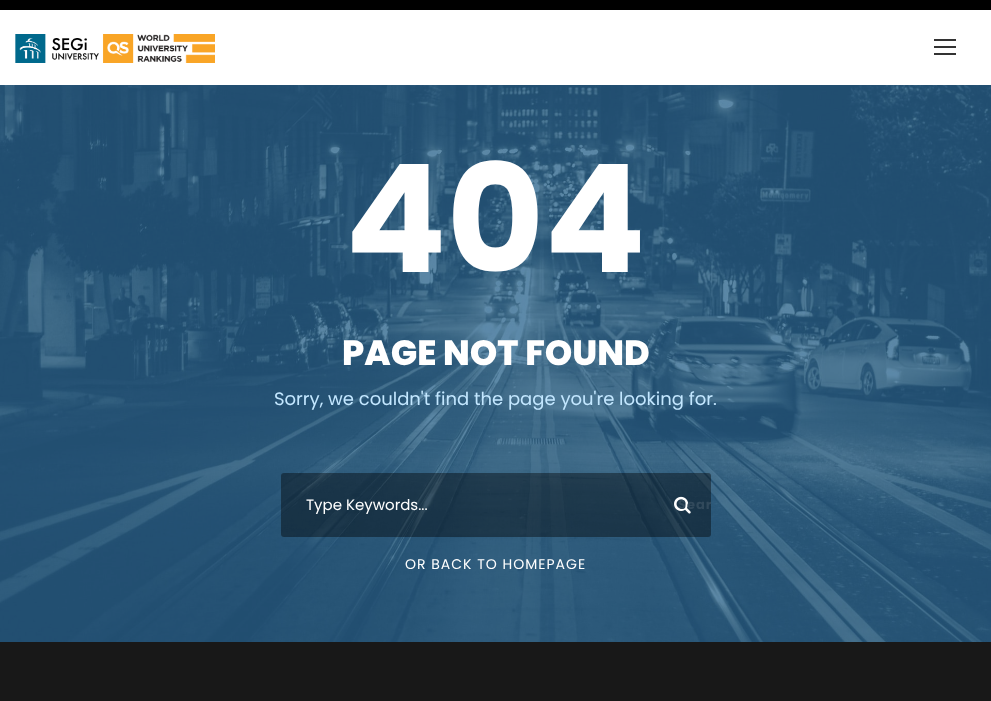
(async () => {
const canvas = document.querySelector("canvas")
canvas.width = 991
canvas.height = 701
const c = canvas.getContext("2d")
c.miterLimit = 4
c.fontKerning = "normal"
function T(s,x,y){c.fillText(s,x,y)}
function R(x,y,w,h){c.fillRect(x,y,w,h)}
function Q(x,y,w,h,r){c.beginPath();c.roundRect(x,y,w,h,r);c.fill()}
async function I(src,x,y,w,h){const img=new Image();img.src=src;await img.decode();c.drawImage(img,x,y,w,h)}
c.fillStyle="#fff"
R(0,0,991,701)
c.fillStyle="#000"
R(0,0,991,10)
await I("1.png",15,34,200,29)
c.fillStyle="#333"
R(934,39,22,2)
R(934,46,22,2)
R(934,53,22,2)
c.fillStyle="#23618e"
R(0,85,991,557)
await I("2.png",0,85,991,557)
c.font="bold 150px Poppins"
c.fillStyle="#fff"
T("404",345,272)
c.font="800 35px Poppins"
T("PAGE NOT FOUND",342,365)
c.font="18px Poppins"
c.fillStyle="#c3e7ff"
T("Sorry, we couldn't find the page you're looking for.",274,405)
c.fillStyle="#00000066"
Q(281,473,430,64,3)
c.font="15px Poppins"
c.fillStyle="#fff"
T("Type Keywords...",306,510)
await I("3.png",674,496,17,18)
c.letterSpacing="1px"
c.font="bold 13px Poppins"
c.fillStyle="#31495b"
T("Sear",678,509)
c.font="14px Poppins"
c.fillStyle="#fff"
T("OR BACK TO HOMEPAGE",405,569)
c.fillStyle="#181818"
R(0,642,991,59)
})()
